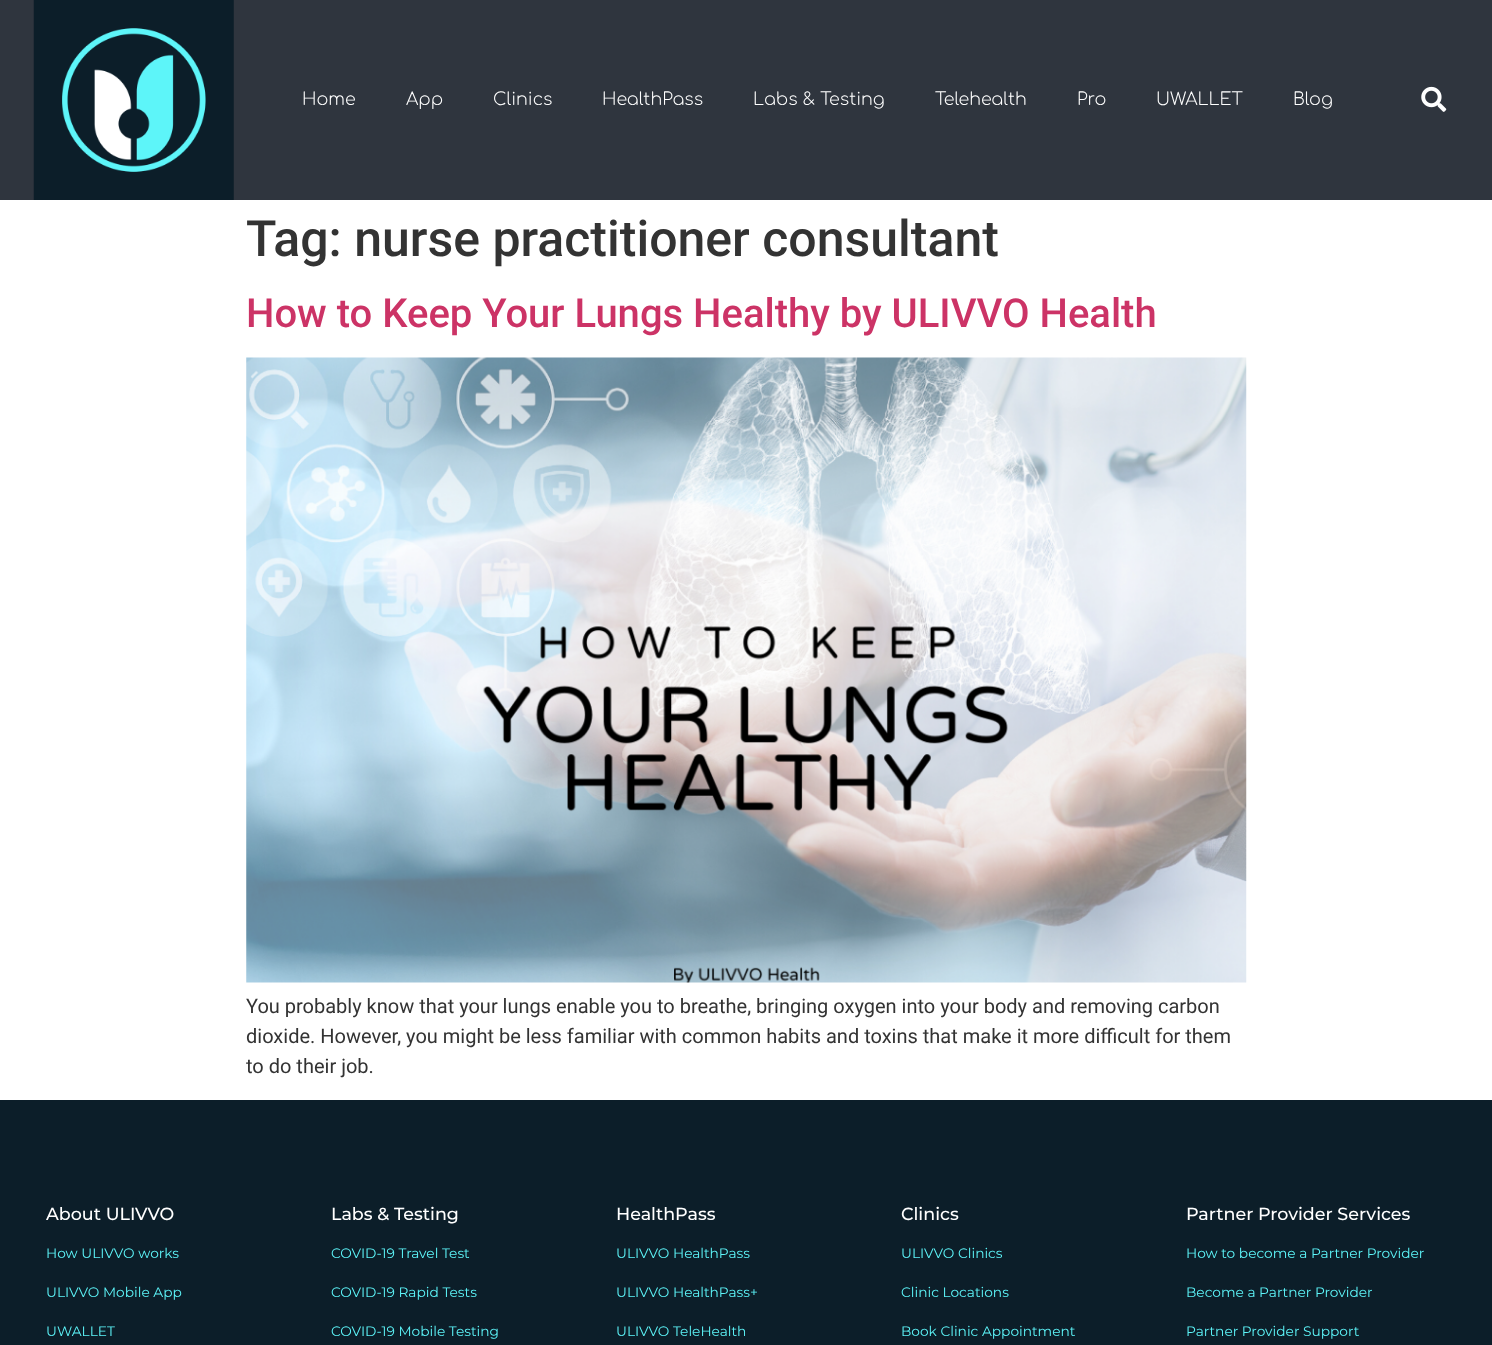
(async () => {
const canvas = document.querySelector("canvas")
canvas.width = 1492
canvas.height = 1345
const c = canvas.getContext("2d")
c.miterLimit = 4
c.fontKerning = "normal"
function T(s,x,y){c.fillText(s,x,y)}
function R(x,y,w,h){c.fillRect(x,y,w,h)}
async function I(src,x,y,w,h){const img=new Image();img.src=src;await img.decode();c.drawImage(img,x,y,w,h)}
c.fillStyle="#fff"
R(0,0,1492,1345)
c.fillStyle="#2f353e"
R(0,0,1492,200)
await I("1.png",33,0,201,200)
c.font="300 17.5px Comfortaa"
c.fillStyle="#fff"
T("Home",302,105)
T("App",406,105)
T("Clinics",493,105)
T("HealthPass",602,105)
T("Labs & Testing",753,105)
T("Telehealth",935,105)
T("Pro",1077,105)
T("UWALLET",1156,105)
T("Blog",1293,105)
await I("2.png",1421,86,26,26)
c.font="500 50px Roboto"
c.fillStyle="#333"
T("Tag: nurse practitioner consultant",246,256)
c.font="500 40px Roboto"
c.fillStyle="#c36"
T("How to Keep Your Lungs Healthy by ULIVVO Health",246,327)
await I("3.png",246,357,1001,626)
c.font="20px Roboto"
c.fillStyle="#333"
T("You probably know that your lungs enable you to breathe, bringing oxygen into your body and removing carbon",246,1013)
T("dioxide. However, you might be less familiar with common habits and toxins that make it more difficult for them",246,1043)
T("to do their job.",246,1073)
c.fillStyle="#0c1e29"
R(0,1100,1492,245)
c.font="500 17.5px Montserrat"
c.fillStyle="#fff"
T("About ULIVVO",46,1220)
c.font="13.75px Montserrat"
c.fillStyle="#5df5f9"
T("How ULIVVO works",46,1258)
T("ULIVVO Mobile App",46,1297)
T("UWALLET",46,1336)
c.font="500 17.5px Montserrat"
c.fillStyle="#fff"
T("Labs & Testing",331,1220)
c.font="13.75px Montserrat"
c.fillStyle="#5df5f9"
T("COVID-19 Travel Test",331,1258)
T("COVID-19 Rapid Tests",331,1297)
T("COVID-19 Mobile Testing",331,1336)
c.font="500 17.5px Montserrat"
c.fillStyle="#fff"
T("HealthPass",616,1220)
c.font="13.75px Montserrat"
c.fillStyle="#5df5f9"
T("ULIVVO HealthPass",616,1258)
T("ULIVVO HealthPass+",616,1297)
T("ULIVVO TeleHealth",616,1336)
c.font="500 17.5px Montserrat"
c.fillStyle="#fff"
T("Clinics",901,1220)
c.font="13.75px Montserrat"
c.fillStyle="#5df5f9"
T("ULIVVO Clinics",901,1258)
T("Clinic Locations",901,1297)
T("Book Clinic Appointment",901,1336)
c.font="500 17.5px Montserrat"
c.fillStyle="#fff"
T("Partner Provider Services",1186,1220)
c.font="13.75px Montserrat"
c.fillStyle="#5df5f9"
T("How to become a Partner Provider",1186,1258)
T("Become a Partner Provider",1186,1297)
T("Partner Provider Support",1186,1336)
})()
